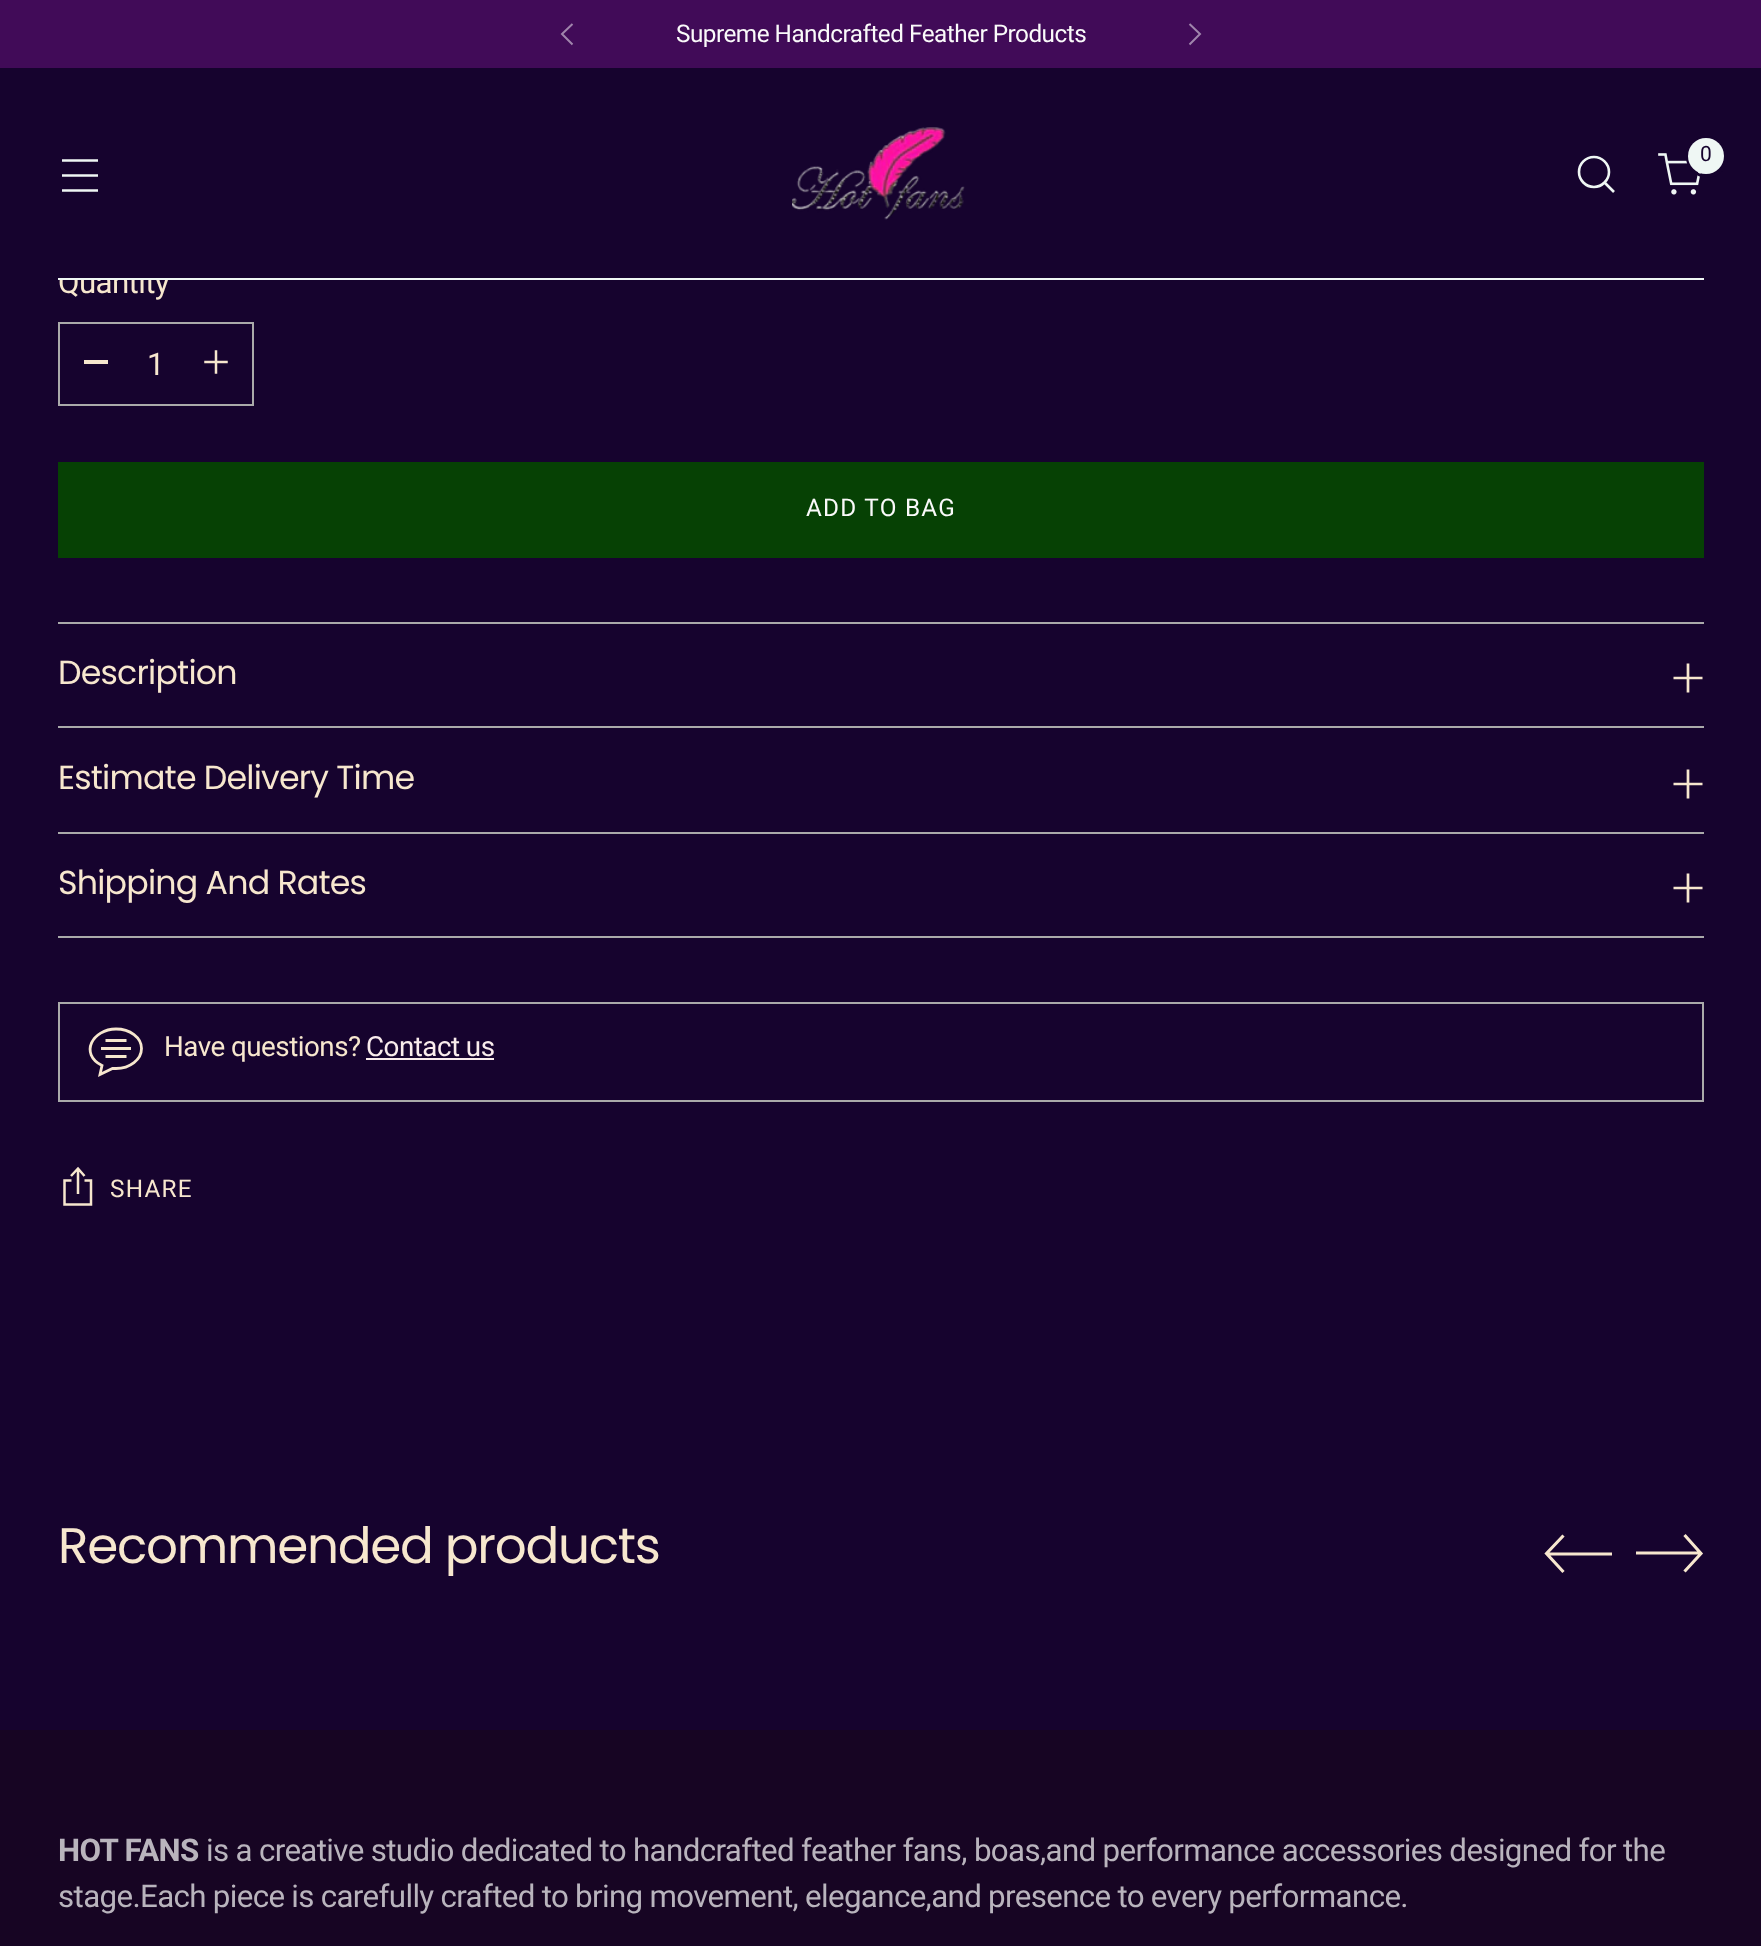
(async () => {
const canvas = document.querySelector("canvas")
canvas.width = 1761
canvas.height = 1946
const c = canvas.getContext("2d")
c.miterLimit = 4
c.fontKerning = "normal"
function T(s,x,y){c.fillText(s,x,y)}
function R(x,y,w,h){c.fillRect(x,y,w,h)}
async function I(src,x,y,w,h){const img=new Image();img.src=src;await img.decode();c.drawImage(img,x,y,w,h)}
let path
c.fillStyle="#16032e"
R(0,0,1761,1946)
c.fillStyle="#410b58"
R(0,0,1761,68)
path = new Path2D("M572.5 24l-10.5 10l10.5 10.5")
c.strokeStyle="#a085ac"
c.lineWidth=2
c.stroke(path)
path = new Path2D("M1189.5 44.5l10.5-10.5l-10.5-10")
c.stroke(path)
c.letterSpacing="-0.5px"
c.font="24.3px Roboto"
c.fillStyle="#fafafa"
T("Supreme Handcrafted Feather Products",676,42)
c.letterSpacing="-0.63px"
c.font="31.3px Roboto"
c.fillStyle="#f7e7ce"
T("Quantity",58,293)
c.fillStyle="#16032e"
R(59,270,111,10)
c.fillStyle="#eff7f4"
R(58,278,1646,2)
await I("1.png",792,127,173,93)
path = new Path2D("M1594 187c8 0 15-7 15-15c0-8.5-7-15-15-15c-8.5 0-15 6.5-15 15c0 8 6.5 15 15 15z")
c.strokeStyle="#eff7f4"
c.lineWidth=2.6
c.lineCap="round"
c.stroke(path)
path = new Path2D("M1604.5 182.5l9.5 9.5")
c.lineCap="butt"
c.stroke(path)
await I("2.png",1658,153,43,42)
c.beginPath()
c.arc(1707,157,19.5,0,7)
c.strokeStyle="#16032e"
c.lineWidth=3
c.stroke()
c.beginPath()
c.arc(1706,156,18,0,7)
c.fill()
c.font="21px Roboto"
c.fillStyle="#16032e"
T("0",1700,161)
path = new Path2D("M62 175.5h36m-36-15h36m-36 30h36")
c.strokeStyle="#eff7f4"
c.lineWidth=2.6
c.stroke(path)
c.strokeStyle="#aaa"
c.lineWidth=2
c.strokeRect(59,323,194,82)
c.fillStyle="#f7e7ce"
R(84,360,24,4)
c.letterSpacing="0px"
c.font="31.3px Roboto"
T("1",147,375)
await I("3.png",204,350,24,24)
c.save()
c.beginPath()
c.rect(58,462,1646,96)
c.clip()
c.fillStyle="#064104"
path = new Path2D("M-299 462h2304l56 96h-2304z")
c.fill(path)
c.restore()
c.letterSpacing="1.25px"
c.font="24.3px Roboto"
c.fillStyle="#fafafa"
T("ADD TO BAG",806,516)
c.fillStyle="#aaa"
R(58,622,1646,2)
R(58,726,1646,2)
c.letterSpacing="-0.8px"
c.font="33.25px Poppins"
c.fillStyle="#f7e7ce"
T("Description",58,684)
path = new Path2D("M1673.5 678h14.5m14.5 0h-14.5m0 0v-14.5m0 14.5v14.5")
c.strokeStyle="#f7e7ce"
c.lineWidth=2.7
c.stroke(path)
c.fillStyle="#aaa"
R(58,832,1646,2)
c.fillStyle="#f7e7ce"
T("Estimate Delivery Time",58,789)
path = new Path2D("M1673.5 784h14.5m14.5 0h-14.5m0 0v-14.5m0 14.5v14.5")
c.stroke(path)
c.fillStyle="#aaa"
R(58,936,1646,2)
c.fillStyle="#f7e7ce"
T("Shipping And Rates",58,894)
path = new Path2D("M1673.5 888h14.5m14.5 0h-14.5m0 0v-14.5m0 14.5v14.5")
c.stroke(path)
c.strokeStyle="#aaa"
c.lineWidth=2
c.strokeRect(59,1003,1644,98)
path = new Path2D("M101 1048.5h30m-25.5-8h21m-21 16h21")
c.strokeStyle="#f7e7ce"
c.lineWidth=2.8
c.stroke(path)
path = new Path2D("M116 1029c-23.5 0-37 25-14 36.5l-2 9l12.5-6h3.5c14 0 25.5-9 25.5-20c0-11-11.5-19.5-25.5-19.5z")
c.lineCap="round"
c.stroke(path)
c.letterSpacing="-0.5px"
c.font="27.75px Roboto"
T("Have questions?",164,1056)
c.fillStyle="#f9ecec"
T("Contact us",366,1056)
R(366,1058,128,2)
path = new Path2D("M71.5 1180.5h-7v24h26.5v-24h-6.5m-6.5 13.5v-24m6.5 6l-6.5-7.5l-7 7.5")
c.lineWidth=2.5
c.lineCap="butt"
c.stroke(path)
c.letterSpacing="1.25px"
c.font="24.3px Roboto"
c.fillStyle="#f7e7ce"
T("SHARE",110,1197)
c.letterSpacing="-1.25px"
c.font="50px Poppins"
T("Recommended products",58,1563)
path = new Path2D("M1563.5 1535.5l-17 18l17 18.5m-17-18h65.5")
c.lineWidth=3.1
c.stroke(path)
path = new Path2D("M1684.5 1571.5l16.5-18l-16.5-18.5m16.5 18h-65")
c.stroke(path)
c.fillStyle="#170523"
R(0,1730,1761,216)
c.letterSpacing="-0.63px"
c.font="bold 31.3px Roboto"
c.fillStyle="#b9b4bd"
T("HOT FANS",58,1861)
c.wordSpacing="-0.1px"
c.font="31.3px Roboto"
T("is a creative studio dedicated to handcrafted feather fans, boas,and performance accessories designed for the",206,1861)
c.wordSpacing="-0.25px"
T("stage.Each piece is carefully crafted to bring movement, elegance,and presence to every performance.",58,1907)
})()
